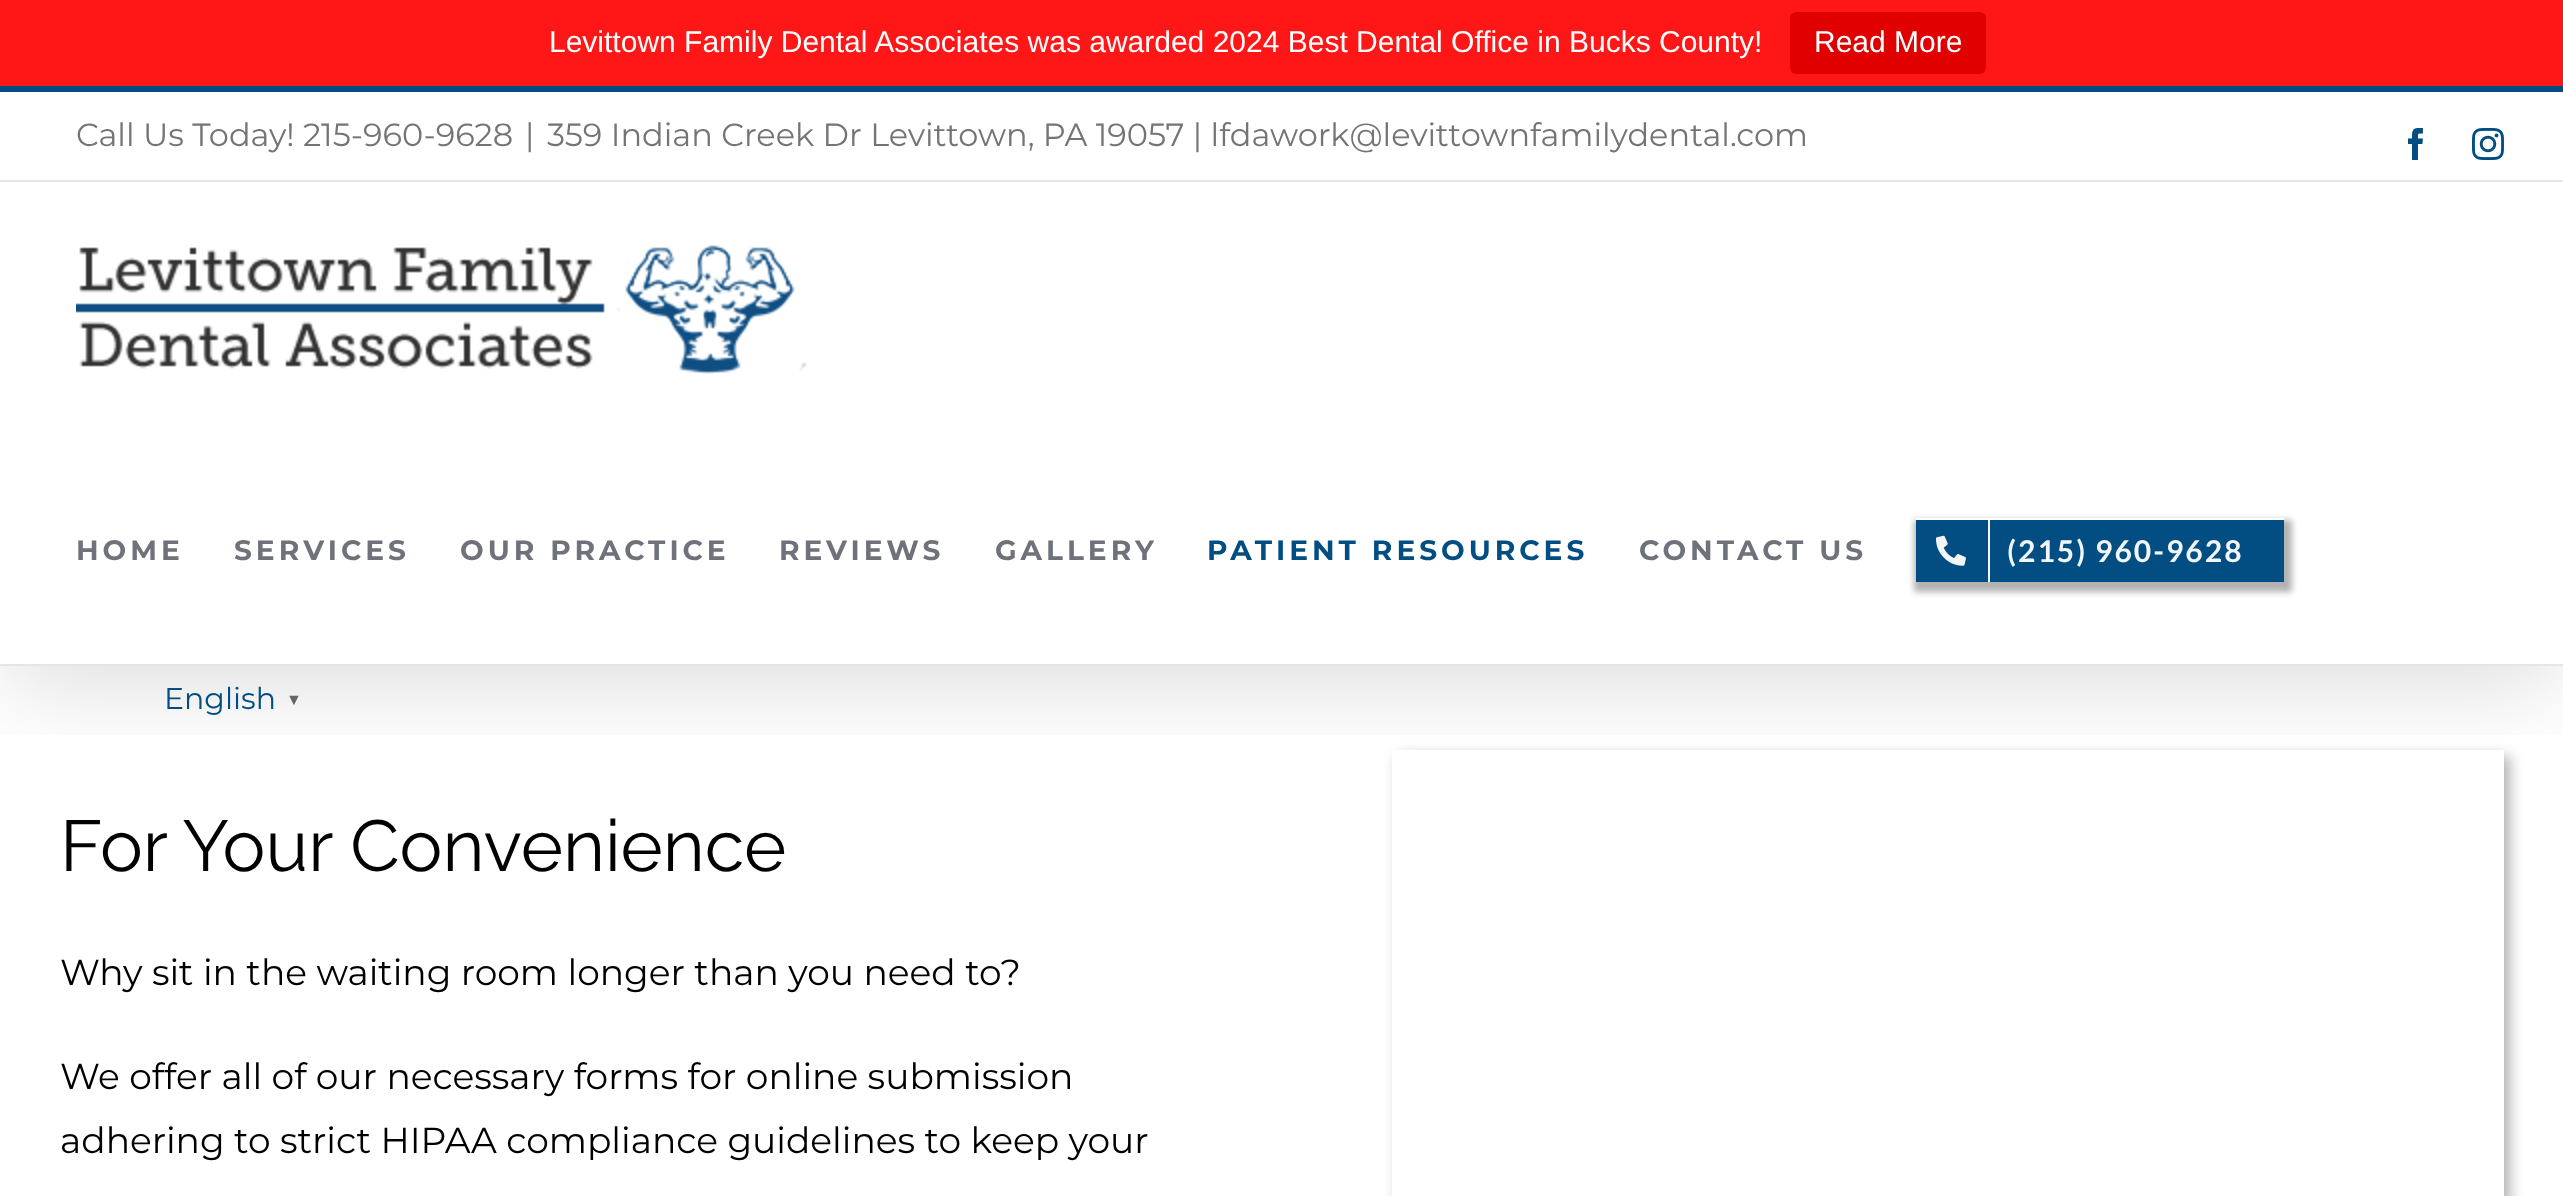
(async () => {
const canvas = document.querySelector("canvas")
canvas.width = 2563
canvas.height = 1196
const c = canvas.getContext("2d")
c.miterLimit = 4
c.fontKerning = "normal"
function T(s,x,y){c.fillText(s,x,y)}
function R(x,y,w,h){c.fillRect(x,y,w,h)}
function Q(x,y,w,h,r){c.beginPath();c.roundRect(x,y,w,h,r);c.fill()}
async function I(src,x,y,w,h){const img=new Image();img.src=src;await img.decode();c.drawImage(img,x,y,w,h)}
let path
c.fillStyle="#fff"
R(0,0,2563,1196)
c.save()
c.beginPath()
c.rect(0,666,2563,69)
c.clip()
c.fillStyle="#00000024"
c.filter="blur(50px)"
c.beginPath()
c.rect(4,110,2556,572)
c.fill()
c.filter="none"
c.restore()
c.fillStyle="#ff1616"
R(0,0,2563,86)
c.font="30px Liberation Sans"
c.fillStyle="#fff"
T("Levittown Family Dental Associates was awarded 2024 Best Dental Office in Bucks County!",549,52)
c.fillStyle="#e00000"
Q(1790,12,196,62,6)
c.fillStyle="#fff"
T("Read More",1814,52)
c.fillStyle="#024e82"
R(0,86,2563,6)
c.fillStyle="#e5e5e5"
R(0,180,2563,2)
c.font="32px Montserrat"
c.fillStyle="#747474"
T("Call Us Today! 215-960-9628",76,146)
T("|",525,146)
T("359 Indian Creek Dr Levittown, PA 19057 | lfdawork@levittownfamilydental.com",547,146)
await I("1.png",2408,128,15,32)
await I("2.png",2472,128,32,32)
c.fillStyle="#e5e5e5"
R(0,664,2563,2)
await I("3.png",76,245,731,129)
c.letterSpacing="4px"
c.font="bold 28px Montserrat"
c.fillStyle="#6f727b"
T("HOME",76,560)
T("SERVICES",234,560)
T("OUR PRACTICE",460,560)
T("REVIEWS",779,560)
T("GALLERY",995,560)
c.fillStyle="#024e82"
T("PATIENT RESOURCES",1207,560)
c.fillStyle="#6f727b"
T("CONTACT US",1639,560)
c.fillStyle="#0000004d"
c.filter="blur(3px)"
c.beginPath()
c.rect(1914,520,378,72)
c.fill()
c.filter="none"
c.fillStyle="#024e82"
R(1916,520,368,62)
c.fillStyle="#f2f6f9"
R(1988,518,2,64)
c.fillStyle="#fff"
R(1916,518,368,2)
await I("4.png",1936,535,30,31)
c.letterSpacing="2px"
c.font="bold 30px Lato"
c.fillStyle="#f2f6f9"
T("(215) 960-9628",2007,562)
c.letterSpacing="0px"
c.font="30px Montserrat"
c.fillStyle="#024e82"
T("English",164,709)
c.font="bold 16px Liberation Serif"
c.fillStyle="#666"
T("▼",286,705)
c.font="100 72px Raleway"
c.fillStyle="#000"
T("For Your Convenience",60,871)
c.font="36px Montserrat"
T("Why sit in the waiting room longer than you need to?",60,985)
T("We offer all of our necessary forms for online submission",60,1089)
T("adhering to strict HIPAA compliance guidelines to keep your",60,1153)
c.save()
path = new Path2D("M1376 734h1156v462h-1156zm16 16h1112v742h-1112z")
c.clip(path,"evenodd")
c.fillStyle="#0000004d"
c.filter="blur(7px)"
c.beginPath()
c.rect(1398,756,1112,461)
c.fill()
c.filter="none"
c.restore()
})()
